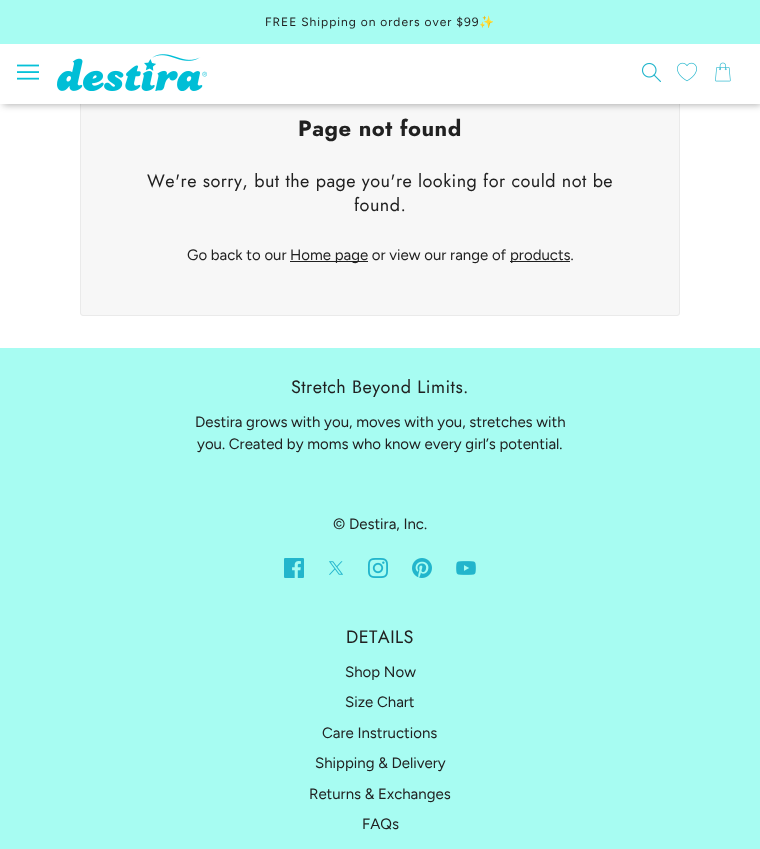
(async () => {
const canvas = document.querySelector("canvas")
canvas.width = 760
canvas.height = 849
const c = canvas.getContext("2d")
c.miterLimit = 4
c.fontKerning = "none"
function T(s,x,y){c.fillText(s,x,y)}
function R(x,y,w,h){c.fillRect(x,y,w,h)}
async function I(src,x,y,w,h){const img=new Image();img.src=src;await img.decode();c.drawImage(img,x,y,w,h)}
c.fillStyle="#fff"
R(0,0,760,849)
c.fillStyle="#f7f7f7"
c.beginPath()
c.roundRect(80.5,71.5,599,244,2.5)
c.fill()
c.strokeStyle="#eaeaea"
c.stroke()
c.fillStyle="#0000004d"
c.filter="blur(3.5px)"
c.beginPath()
c.rect(3,3,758,102)
c.fill()
c.filter="none"
c.fillStyle="#a7fcf2"
R(0,0,760,44)
c.letterSpacing="1px"
c.font="12px Figtree"
c.fillStyle="#212121"
T("FREE Shipping on orders over $99",265,26)
c.font="12px Noto Color Emoji"
T("✨",479,26)
c.fillStyle="#fff"
R(0,44,760,60)
await I("1.png",17,64,22,16)
await I("2.png",57,54,150,37)
await I("3.png",641,62,20,20)
await I("4.png",677,62,20,20)
await I("5.png",715,62,16,20)
c.letterSpacing="0.5px"
c.font="bold 22px Jost"
c.fillStyle="#212121"
T("Page not found",298,136)
c.letterSpacing="0.45px"
c.font="18px Jost"
T("We're sorry, but the page you're",147,187)
T("looking for could not be",418,187)
T("found.",354,211)
c.letterSpacing="0px"
c.font="15px Figtree"
T("Go back to our",187,260)
R(290,261,78,1)
T("Home page or view our range of",290,260)
R(510,261,60,1)
T("products.",510,260)
c.fillStyle="#a7fcf2"
R(0,348,760,501)
c.letterSpacing="0.45px"
c.font="18px Jost"
c.fillStyle="#212121"
T("Stretch Beyond Limits.",291,393)
c.letterSpacing="0px"
c.font="15px Figtree"
T("Destira grows with you, moves with you, stretches with",195,427)
T("you. Created by moms who know every girl’s potential.",197,449)
T("© Destira, Inc.",333,529)
await I("6.png",284,558,20,20)
await I("7.png",329,561,14,14)
await I("8.png",368,558,20,20)
await I("9.png",412,558,20,20)
await I("10.png",456,561,20,14)
c.letterSpacing="0.45px"
c.font="18px Jost"
T("DETAILS",346,643)
c.letterSpacing="0px"
c.font="15px Figtree"
T("Shop Now",345,677)
T("Size Chart",345,707)
T("Care Instructions",322,738)
T("Shipping & Delivery",315,768)
T("Returns & Exchanges",309,799)
T("FAQs",362,829)
})()
